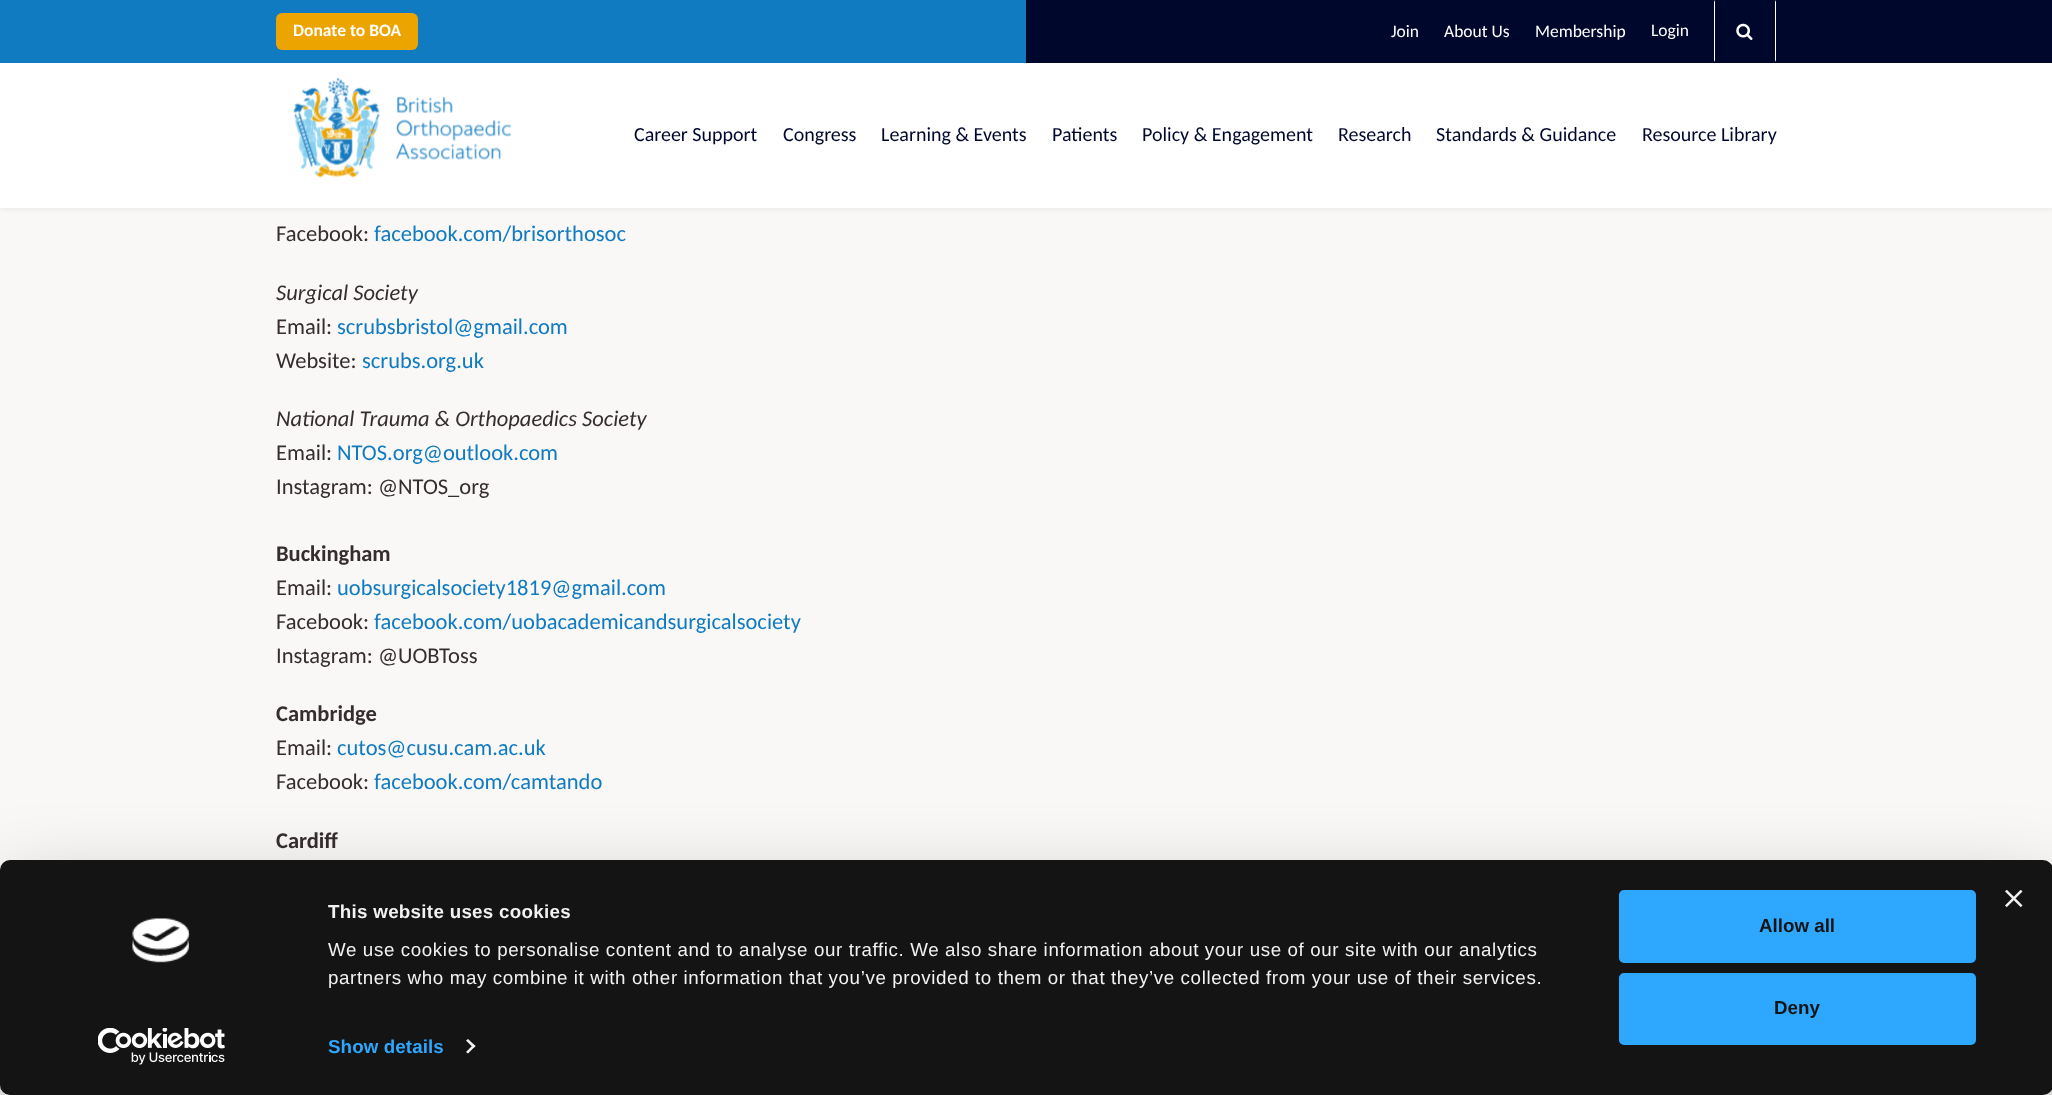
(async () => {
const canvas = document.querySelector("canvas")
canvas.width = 2052
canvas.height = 1095
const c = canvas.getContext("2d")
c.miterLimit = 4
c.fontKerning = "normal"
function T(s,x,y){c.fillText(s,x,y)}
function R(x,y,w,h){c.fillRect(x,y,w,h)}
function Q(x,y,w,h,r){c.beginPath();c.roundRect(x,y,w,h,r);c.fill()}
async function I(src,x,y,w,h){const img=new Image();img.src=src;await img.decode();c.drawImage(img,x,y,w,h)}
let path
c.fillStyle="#f9f8f6"
R(0,0,2052,1095)
c.fillStyle="#00000012"
c.filter="blur(2.5px)"
c.beginPath()
c.rect(0,1,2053,208)
c.fill()
c.filter="none"
c.fillStyle="#fff"
R(0,63,2052,145)
c.fillStyle="#00072d"
R(1026,0,1026,63)
c.fillStyle="#107bc1"
R(0,0,1026,63)
c.fillStyle="#eca400"
Q(276,13,142,37,6)
c.font="bold 17.5px Carlito"
c.fillStyle="#fff"
T("Donate to BOA",293,36)
c.font="17.5px Carlito"
T("Join",1391,37)
T("About Us",1444,37)
T("Membership",1535,37)
T("Login",1651,36)
path = new Path2D("M1776 0v62l-1-2v-58zm-62 62v-62l1 2v58z")
c.fill(path)
await I("1.png",1736,23,17,17)
await I("2.png",293,77,219,101)
c.font="20px Carlito"
c.fillStyle="#00072d"
T("Career Support",634,141)
T("Congress",783,141)
T("Learning & Events",881,141)
T("Patients",1052,141)
T("Policy & Engagement",1142,141)
T("Research",1338,141)
T("Standards & Guidance",1436,141)
T("Resource Library",1642,141)
c.font="22.5px Carlito"
c.fillStyle="#362d30"
T("Facebook:",276,241)
c.fillStyle="#107bc1"
T("facebook.com/brisorthosoc",374,241)
c.font="italic 22.5px Carlito"
c.fillStyle="#362d30"
T("Surgical Society",276,300)
c.font="22.5px Carlito"
T("Email:",276,334)
c.fillStyle="#107bc1"
T("scrubsbristol@gmail.com",337,334)
c.fillStyle="#362d30"
T("Website:",276,368)
c.fillStyle="#107bc1"
T("scrubs.org.uk",362,368)
c.font="italic 22.5px Carlito"
c.fillStyle="#362d30"
T("National Trauma & Orthopaedics Society",276,426)
c.font="22.5px Carlito"
T("Email:",276,460)
c.fillStyle="#107bc1"
T("NTOS.org@outlook.com",337,460)
c.fillStyle="#362d30"
T("Instagram: @NTOS_org",276,494)
c.font="bold 22.5px Carlito"
T("Buckingham",276,561)
c.font="22.5px Carlito"
T("Email:",276,595)
c.fillStyle="#107bc1"
T("uobsurgicalsociety1819@gmail.com",337,595)
c.fillStyle="#362d30"
T("Facebook:",276,629)
c.fillStyle="#107bc1"
T("facebook.com/uobacademicandsurgicalsociety",374,629)
c.fillStyle="#362d30"
T("Instagram: @UOBToss",276,663)
c.font="bold 22.5px Carlito"
T("Cambridge",276,721)
c.font="22.5px Carlito"
T("Email:",276,755)
c.fillStyle="#107bc1"
T("cutos@cusu.cam.ac.uk",337,755)
c.fillStyle="#362d30"
T("Facebook:",276,789)
c.fillStyle="#107bc1"
T("facebook.com/camtando",374,789)
c.font="bold 22.5px Carlito"
c.fillStyle="#362d30"
T("Cardiff",276,848)
c.fillStyle="#0000004d"
c.filter="blur(44px)"
c.beginPath()
c.roundRect(0,898,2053,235,10)
c.fill()
c.filter="none"
c.fillStyle="#141414"
Q(0,860,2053,235,10)
await I("3.png",2005,890,18,18)
await I("4.png",132,918,58,45)
await I("5.png",98,1028,127,37)
c.letterSpacing="0.3px"
c.font="bold 18.75px Liberation Sans"
c.fillStyle="#f2f2f2"
T("This website uses cookies",328,918)
c.letterSpacing="0.62px"
c.font="18.75px Liberation Sans"
T("We use cookies to personalise content and to analyse our traffic. We also share information about your use of our site with our analytics",328,956)
T("partners who may combine it with other information that you’ve provided to them or that they’ve collected from your use of their services.",328,984)
c.letterSpacing="0.1px"
c.font="bold 18.75px Liberation Sans"
c.fillStyle="#2ea7ff"
T("Show details",328,1053)
c.fillStyle="#f2f2f2"
path = new Path2D("M468 1039l7.5 7l-2 2l-7.5-7.5z")
c.fill(path)
path = new Path2D("M473.5 1044.5l2 1.5l-7.5 7.5l-2-1.5z")
c.fill(path)
c.fillStyle="#2ea7ff"
c.beginPath()
c.roundRect(1620.5,891.5,354,70,3.5)
c.fill()
c.strokeStyle="#2ea7ff"
c.lineWidth=3
c.stroke()
c.letterSpacing="0px"
c.fillStyle="#141414"
T("Allow all",1759,932)
c.fillStyle="#2ea7ff"
c.beginPath()
c.roundRect(1620.5,974.5,354,69,3.5)
c.fill()
c.stroke()
c.fillStyle="#141414"
T("Deny",1774,1014)
})()
